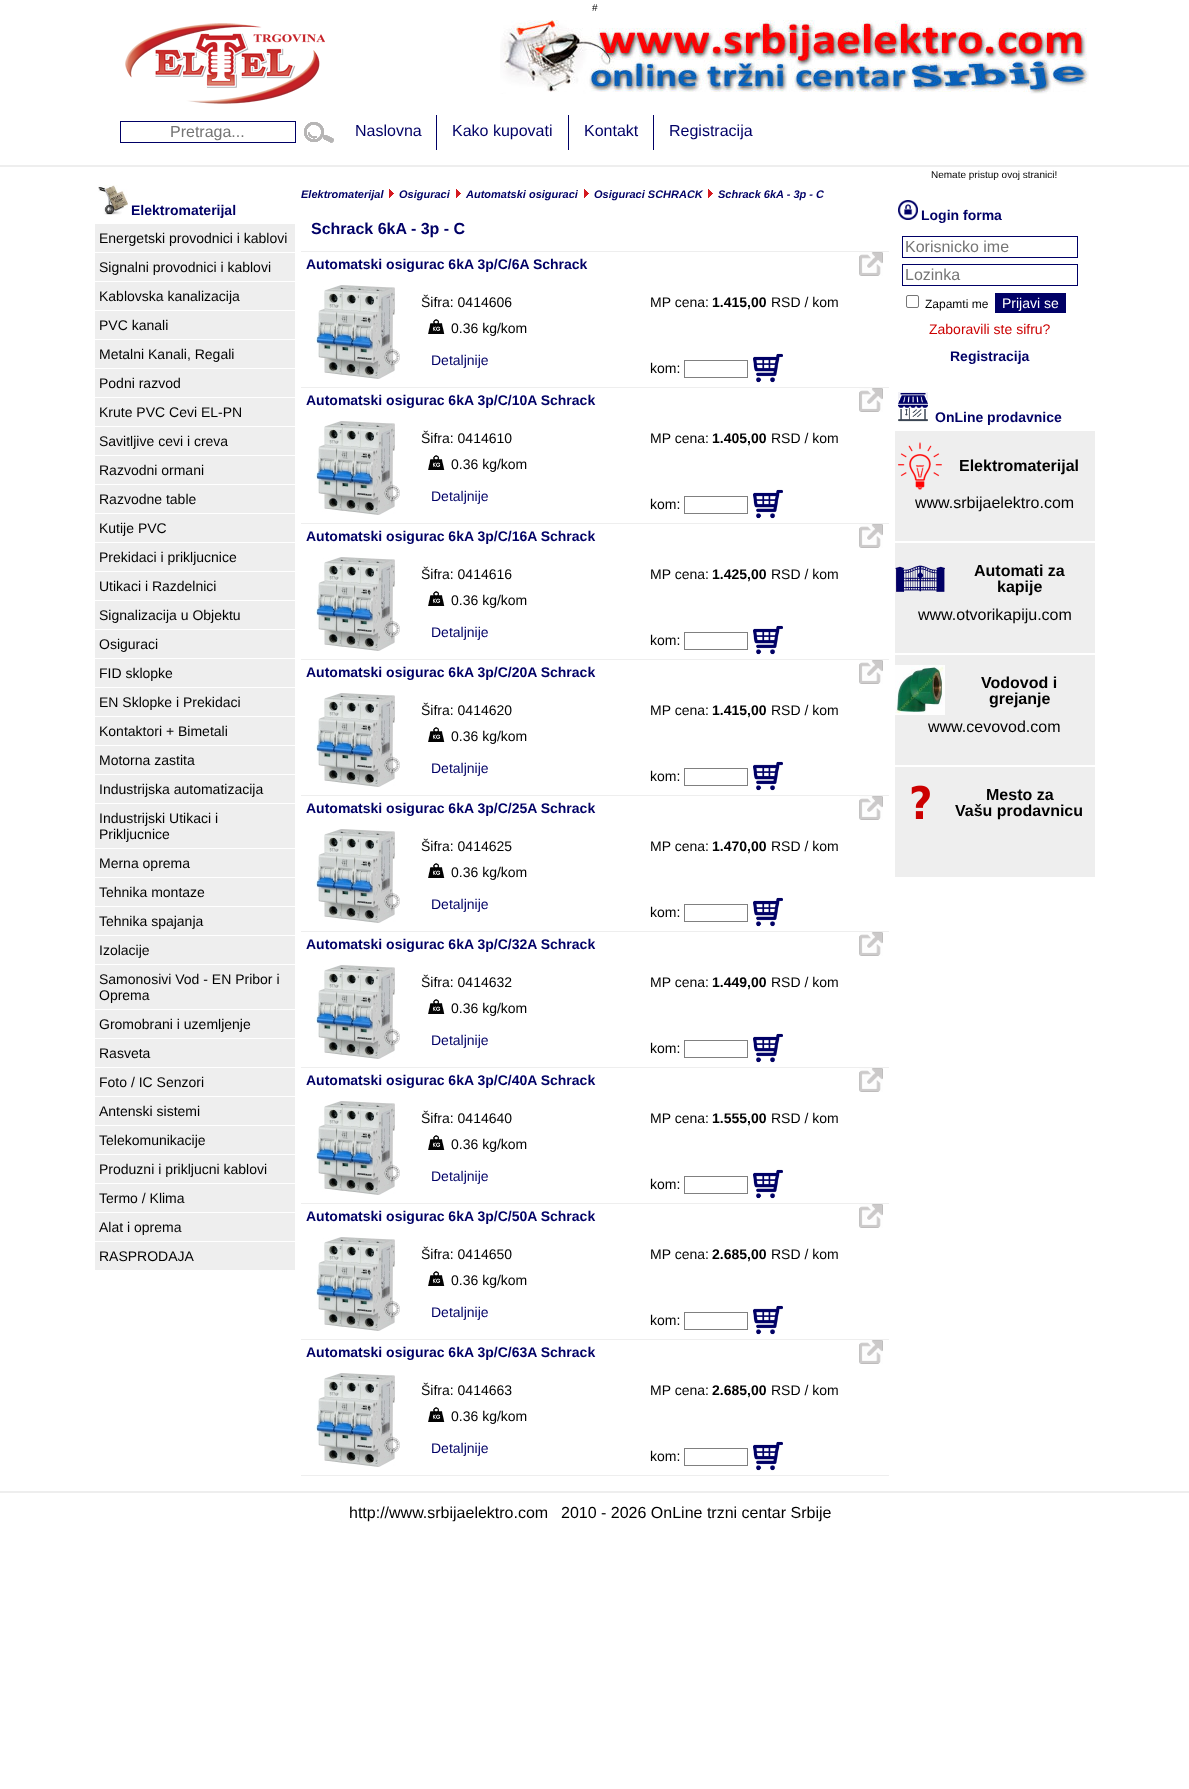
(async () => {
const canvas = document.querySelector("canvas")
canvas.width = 1189
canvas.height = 1789
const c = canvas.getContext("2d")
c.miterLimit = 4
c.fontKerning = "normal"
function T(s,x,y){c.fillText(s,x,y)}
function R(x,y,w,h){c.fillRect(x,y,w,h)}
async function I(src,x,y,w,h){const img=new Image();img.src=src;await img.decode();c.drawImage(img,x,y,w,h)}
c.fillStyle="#fff"
R(0,0,1189,1789)
c.font="10px Liberation Sans"
c.fillStyle="#000"
T("#",592,11)
await I("1.png",125,23,200,81)
await I("2.png",500,20,589,74)
c.strokeStyle="#006"
c.strokeRect(120.5,121.5,175,21)
c.font="16px Liberation Sans"
c.fillStyle="#757575"
T("Pretraga...",170,137)
await I("3.png",304,122,30,21)
c.fillStyle="#006"
R(436,115,1,35)
T("Naslovna",355,136)
R(568,115,1,35)
T("Kako kupovati",452,136)
R(653,115,1,35)
T("Kontakt",584,136)
T("Registracija",669,136)
c.fillStyle="#eee"
R(0,165,1189,2)
await I("4.png",98,185,30,30)
c.font="bold 14px Liberation Sans"
c.fillStyle="#006"
T("Elektromaterijal",131,215)
c.fillStyle="#eee"
R(95,224,200,28)
c.font="14px Liberation Sans"
c.fillStyle="#000"
T("Energetski provodnici i kablovi",99,243)
c.fillStyle="#eee"
R(95,253,200,28)
c.fillStyle="#000"
T("Signalni provodnici i kablovi",99,272)
c.fillStyle="#eee"
R(95,282,200,28)
c.fillStyle="#000"
T("Kablovska kanalizacija",99,301)
c.fillStyle="#eee"
R(95,311,200,28)
c.fillStyle="#000"
T("PVC kanali",99,330)
c.fillStyle="#eee"
R(95,340,200,28)
c.fillStyle="#000"
T("Metalni Kanali, Regali",99,359)
c.fillStyle="#eee"
R(95,369,200,28)
c.fillStyle="#000"
T("Podni razvod",99,388)
c.fillStyle="#eee"
R(95,398,200,28)
c.fillStyle="#000"
T("Krute PVC Cevi EL-PN",99,417)
c.fillStyle="#eee"
R(95,427,200,28)
c.fillStyle="#000"
T("Savitljive cevi i creva",99,446)
c.fillStyle="#eee"
R(95,456,200,28)
c.fillStyle="#000"
T("Razvodni ormani",99,475)
c.fillStyle="#eee"
R(95,485,200,28)
c.fillStyle="#000"
T("Razvodne table",99,504)
c.fillStyle="#eee"
R(95,514,200,28)
c.fillStyle="#000"
T("Kutije PVC",99,533)
c.fillStyle="#eee"
R(95,543,200,28)
c.fillStyle="#000"
T("Prekidaci i prikljucnice",99,562)
c.fillStyle="#eee"
R(95,572,200,28)
c.fillStyle="#000"
T("Utikaci i Razdelnici",99,591)
c.fillStyle="#eee"
R(95,601,200,28)
c.fillStyle="#000"
T("Signalizacija u Objektu",99,620)
c.fillStyle="#eee"
R(95,630,200,28)
c.fillStyle="#000"
T("Osiguraci",99,649)
c.fillStyle="#eee"
R(95,659,200,28)
c.fillStyle="#000"
T("FID sklopke",99,678)
c.fillStyle="#eee"
R(95,688,200,28)
c.fillStyle="#000"
T("EN Sklopke i Prekidaci",99,707)
c.fillStyle="#eee"
R(95,717,200,28)
c.fillStyle="#000"
T("Kontaktori + Bimetali",99,736)
c.fillStyle="#eee"
R(95,746,200,28)
c.fillStyle="#000"
T("Motorna zastita",99,765)
c.fillStyle="#eee"
R(95,775,200,28)
c.fillStyle="#000"
T("Industrijska automatizacija",99,794)
c.fillStyle="#eee"
R(95,804,200,44)
c.fillStyle="#000"
T("Industrijski Utikaci i",99,823)
T("Prikljucnice",99,839)
c.fillStyle="#eee"
R(95,849,200,28)
c.fillStyle="#000"
T("Merna oprema",99,868)
c.fillStyle="#eee"
R(95,878,200,28)
c.fillStyle="#000"
T("Tehnika montaze",99,897)
c.fillStyle="#eee"
R(95,907,200,28)
c.fillStyle="#000"
T("Tehnika spajanja",99,926)
c.fillStyle="#eee"
R(95,936,200,28)
c.fillStyle="#000"
T("Izolacije",99,955)
c.fillStyle="#eee"
R(95,965,200,44)
c.fillStyle="#000"
T("Samonosivi Vod - EN Pribor i",99,984)
T("Oprema",99,1000)
c.fillStyle="#eee"
R(95,1010,200,28)
c.fillStyle="#000"
T("Gromobrani i uzemljenje",99,1029)
c.fillStyle="#eee"
R(95,1039,200,28)
c.fillStyle="#000"
T("Rasveta",99,1058)
c.fillStyle="#eee"
R(95,1068,200,28)
c.fillStyle="#000"
T("Foto / IC Senzori",99,1087)
c.fillStyle="#eee"
R(95,1097,200,28)
c.fillStyle="#000"
T("Antenski sistemi",99,1116)
c.fillStyle="#eee"
R(95,1126,200,28)
c.fillStyle="#000"
T("Telekomunikacije",99,1145)
c.fillStyle="#eee"
R(95,1155,200,28)
c.fillStyle="#000"
T("Produzni i prikljucni kablovi",99,1174)
c.fillStyle="#eee"
R(95,1184,200,28)
c.fillStyle="#000"
T("Termo / Klima",99,1203)
c.fillStyle="#eee"
R(95,1213,200,28)
c.fillStyle="#000"
T("Alat i oprema",99,1232)
c.fillStyle="#eee"
R(95,1242,200,28)
c.fillStyle="#000"
T("RASPRODAJA",99,1261)
c.font="italic bold 11px Liberation Sans"
c.fillStyle="#006"
T("Elektromaterijal",301,198)
await I("5.png",389,189,5,9)
T("Osiguraci",399,198)
await I("5.png",456,189,5,9)
T("Automatski osiguraci",466,198)
await I("5.png",584,189,5,9)
T("Osiguraci SCHRACK",594,198)
await I("5.png",708,189,5,9)
T("Schrack 6kA - 3p - C",718,198)
c.fillStyle="#eee"
R(301,251,588,1)
c.font="bold 16px Liberation Sans"
c.fillStyle="#006"
T("Schrack 6kA - 3p - C",311,234)
c.fillStyle="#eee"
R(301,387,588,1)
c.font="bold 14px Liberation Sans"
c.fillStyle="#006"
T("Automatski osigurac 6kA 3p/C/6A Schrack",306,269)
await I("6.png",859,252,24,24)
await I("7.png",314,285,86,94)
c.font="14px Liberation Sans"
c.fillStyle="#000"
T("Šifra: 0414606",421,307)
await I("8.png",428,319,17,15)
T("0.36 kg/kom",451,333)
c.fillStyle="#006"
T("Detaljnije",431,365)
c.fillStyle="#000"
T("MP cena:",650,307)
c.font="bold 14px Liberation Sans"
T("1.415,00",712,307)
c.font="14px Liberation Sans"
T("RSD / kom",771,307)
T("kom:",650,373)
c.strokeStyle="#808080"
c.strokeRect(684.5,360.5,63,17)
await I("9.png",753,353,30,30)
c.fillStyle="#eee"
R(301,523,588,1)
c.font="bold 14px Liberation Sans"
c.fillStyle="#006"
T("Automatski osigurac 6kA 3p/C/10A Schrack",306,405)
await I("6.png",859,388,24,24)
await I("7.png",314,421,86,94)
c.font="14px Liberation Sans"
c.fillStyle="#000"
T("Šifra: 0414610",421,443)
await I("10.png",428,455,17,15)
T("0.36 kg/kom",451,469)
c.fillStyle="#006"
T("Detaljnije",431,501)
c.fillStyle="#000"
T("MP cena:",650,443)
c.font="bold 14px Liberation Sans"
T("1.405,00",712,443)
c.font="14px Liberation Sans"
T("RSD / kom",771,443)
T("kom:",650,509)
c.strokeRect(684.5,496.5,63,17)
await I("9.png",753,489,30,30)
c.fillStyle="#eee"
R(301,659,588,1)
c.font="bold 14px Liberation Sans"
c.fillStyle="#006"
T("Automatski osigurac 6kA 3p/C/16A Schrack",306,541)
await I("6.png",859,524,24,24)
await I("7.png",314,557,86,94)
c.font="14px Liberation Sans"
c.fillStyle="#000"
T("Šifra: 0414616",421,579)
await I("10.png",428,591,17,15)
T("0.36 kg/kom",451,605)
c.fillStyle="#006"
T("Detaljnije",431,637)
c.fillStyle="#000"
T("MP cena:",650,579)
c.font="bold 14px Liberation Sans"
T("1.425,00",712,579)
c.font="14px Liberation Sans"
T("RSD / kom",771,579)
T("kom:",650,645)
c.strokeRect(684.5,632.5,63,17)
await I("9.png",753,625,30,30)
c.fillStyle="#eee"
R(301,795,588,1)
c.font="bold 14px Liberation Sans"
c.fillStyle="#006"
T("Automatski osigurac 6kA 3p/C/20A Schrack",306,677)
await I("6.png",859,660,24,24)
await I("7.png",314,693,86,94)
c.font="14px Liberation Sans"
c.fillStyle="#000"
T("Šifra: 0414620",421,715)
await I("10.png",428,727,17,15)
T("0.36 kg/kom",451,741)
c.fillStyle="#006"
T("Detaljnije",431,773)
c.fillStyle="#000"
T("MP cena:",650,715)
c.font="bold 14px Liberation Sans"
T("1.415,00",712,715)
c.font="14px Liberation Sans"
T("RSD / kom",771,715)
T("kom:",650,781)
c.strokeRect(684.5,768.5,63,17)
await I("11.png",753,761,30,30)
c.fillStyle="#eee"
R(301,931,588,1)
c.font="bold 14px Liberation Sans"
c.fillStyle="#006"
T("Automatski osigurac 6kA 3p/C/25A Schrack",306,813)
await I("6.png",859,796,24,24)
await I("7.png",314,829,86,94)
c.font="14px Liberation Sans"
c.fillStyle="#000"
T("Šifra: 0414625",421,851)
await I("10.png",428,863,17,15)
T("0.36 kg/kom",451,877)
c.fillStyle="#006"
T("Detaljnije",431,909)
c.fillStyle="#000"
T("MP cena:",650,851)
c.font="bold 14px Liberation Sans"
T("1.470,00",712,851)
c.font="14px Liberation Sans"
T("RSD / kom",771,851)
T("kom:",650,917)
c.strokeRect(684.5,904.5,63,17)
await I("9.png",753,897,30,30)
c.fillStyle="#eee"
R(301,1067,588,1)
c.font="bold 14px Liberation Sans"
c.fillStyle="#006"
T("Automatski osigurac 6kA 3p/C/32A Schrack",306,949)
await I("6.png",859,932,24,24)
await I("7.png",314,965,86,94)
c.font="14px Liberation Sans"
c.fillStyle="#000"
T("Šifra: 0414632",421,987)
await I("10.png",428,999,17,15)
T("0.36 kg/kom",451,1013)
c.fillStyle="#006"
T("Detaljnije",431,1045)
c.fillStyle="#000"
T("MP cena:",650,987)
c.font="bold 14px Liberation Sans"
T("1.449,00",712,987)
c.font="14px Liberation Sans"
T("RSD / kom",771,987)
T("kom:",650,1053)
c.strokeRect(684.5,1040.5,63,17)
await I("12.png",753,1033,30,30)
c.fillStyle="#eee"
R(301,1203,588,1)
c.font="bold 14px Liberation Sans"
c.fillStyle="#006"
T("Automatski osigurac 6kA 3p/C/40A Schrack",306,1085)
await I("6.png",859,1068,24,24)
await I("7.png",314,1101,86,94)
c.font="14px Liberation Sans"
c.fillStyle="#000"
T("Šifra: 0414640",421,1123)
await I("10.png",428,1135,17,15)
T("0.36 kg/kom",451,1149)
c.fillStyle="#006"
T("Detaljnije",431,1181)
c.fillStyle="#000"
T("MP cena:",650,1123)
c.font="bold 14px Liberation Sans"
T("1.555,00",712,1123)
c.font="14px Liberation Sans"
T("RSD / kom",771,1123)
T("kom:",650,1189)
c.strokeRect(684.5,1176.5,63,17)
await I("9.png",753,1169,30,30)
c.fillStyle="#eee"
R(301,1339,588,1)
c.font="bold 14px Liberation Sans"
c.fillStyle="#006"
T("Automatski osigurac 6kA 3p/C/50A Schrack",306,1221)
await I("6.png",859,1204,24,24)
await I("7.png",314,1237,86,94)
c.font="14px Liberation Sans"
c.fillStyle="#000"
T("Šifra: 0414650",421,1259)
await I("10.png",428,1271,17,15)
T("0.36 kg/kom",451,1285)
c.fillStyle="#006"
T("Detaljnije",431,1317)
c.fillStyle="#000"
T("MP cena:",650,1259)
c.font="bold 14px Liberation Sans"
T("2.685,00",712,1259)
c.font="14px Liberation Sans"
T("RSD / kom",771,1259)
T("kom:",650,1325)
c.strokeRect(684.5,1312.5,63,17)
await I("13.png",753,1305,30,30)
c.fillStyle="#eee"
R(301,1475,588,1)
c.font="bold 14px Liberation Sans"
c.fillStyle="#006"
T("Automatski osigurac 6kA 3p/C/63A Schrack",306,1357)
await I("6.png",859,1340,24,24)
await I("7.png",314,1373,86,94)
c.font="14px Liberation Sans"
c.fillStyle="#000"
T("Šifra: 0414663",421,1395)
await I("8.png",428,1407,17,15)
T("0.36 kg/kom",451,1421)
c.fillStyle="#006"
T("Detaljnije",431,1453)
c.fillStyle="#000"
T("MP cena:",650,1395)
c.font="bold 14px Liberation Sans"
T("2.685,00",712,1395)
c.font="14px Liberation Sans"
T("RSD / kom",771,1395)
T("kom:",650,1461)
c.strokeRect(684.5,1448.5,63,17)
await I("9.png",753,1441,30,30)
c.font="10px Liberation Sans"
T("Nemate pristup ovoj stranici!",931,178)
await I("14.png",898,200,20,20)
c.font="bold 14px Liberation Sans"
c.fillStyle="#006"
T("Login forma",921,220)
c.strokeStyle="#006"
c.strokeRect(902.5,236.5,175,21)
c.font="16px Liberation Sans"
c.fillStyle="#757575"
T("Korisnicko ime",905,252)
c.strokeRect(902.5,264.5,175,21)
T("Lozinka",905,280)
c.beginPath()
c.roundRect(906.5,295.5,12,12,1.5)
c.strokeStyle="#767676"
c.stroke()
c.font="12px Liberation Sans"
c.fillStyle="#000"
T("Zapamti me",925,308)
c.fillStyle="#006"
R(995,293,71,20)
c.font="14px Liberation Sans"
c.fillStyle="#fff"
T("Prijavi se",1002,308)
c.fillStyle="#c00"
T("Zaboravili ste sifru?",929,334)
c.font="bold 14px Liberation Sans"
c.fillStyle="#006"
T("Registracija",950,361)
await I("15.png",898,392,30,30)
T("OnLine prodavnice",935,422)
c.fillStyle="#eee"
R(895,431,200,110)
await I("16.png",898,442,44,48)
c.font="bold 16px Liberation Sans"
c.fillStyle="#000"
T("Elektromaterijal",959,471)
c.font="16px Liberation Sans"
T("www.srbijaelektro.com",915,508)
c.fillStyle="#eee"
R(895,543,200,110)
await I("17.png",895,565,50,27)
c.font="bold 16px Liberation Sans"
c.fillStyle="#000"
T("Automati za",974,576)
T("kapije",997,592)
c.font="16px Liberation Sans"
T("www.otvorikapiju.com",918,620)
c.fillStyle="#eee"
R(895,655,200,110)
await I("18.png",895,665,50,50)
c.font="bold 16px Liberation Sans"
c.fillStyle="#000"
T("Vodovod i",981,688)
T("grejanje",989,704)
c.font="16px Liberation Sans"
T("www.cevovod.com",928,732)
c.fillStyle="#eee"
R(895,767,200,110)
await I("19.png",911,785,19,34)
c.font="bold 16px Liberation Sans"
c.fillStyle="#000"
T("Mesto za",986,800)
T("Vašu prodavnicu",955,816)
c.fillStyle="#eee"
R(0,1491,1189,2)
c.font="16px Liberation Sans"
c.fillStyle="#000"
T("http://www.srbijaelektro.com",349,1518)
T("2010 - 2026 OnLine trzni centar Srbije",561,1518)
})()
